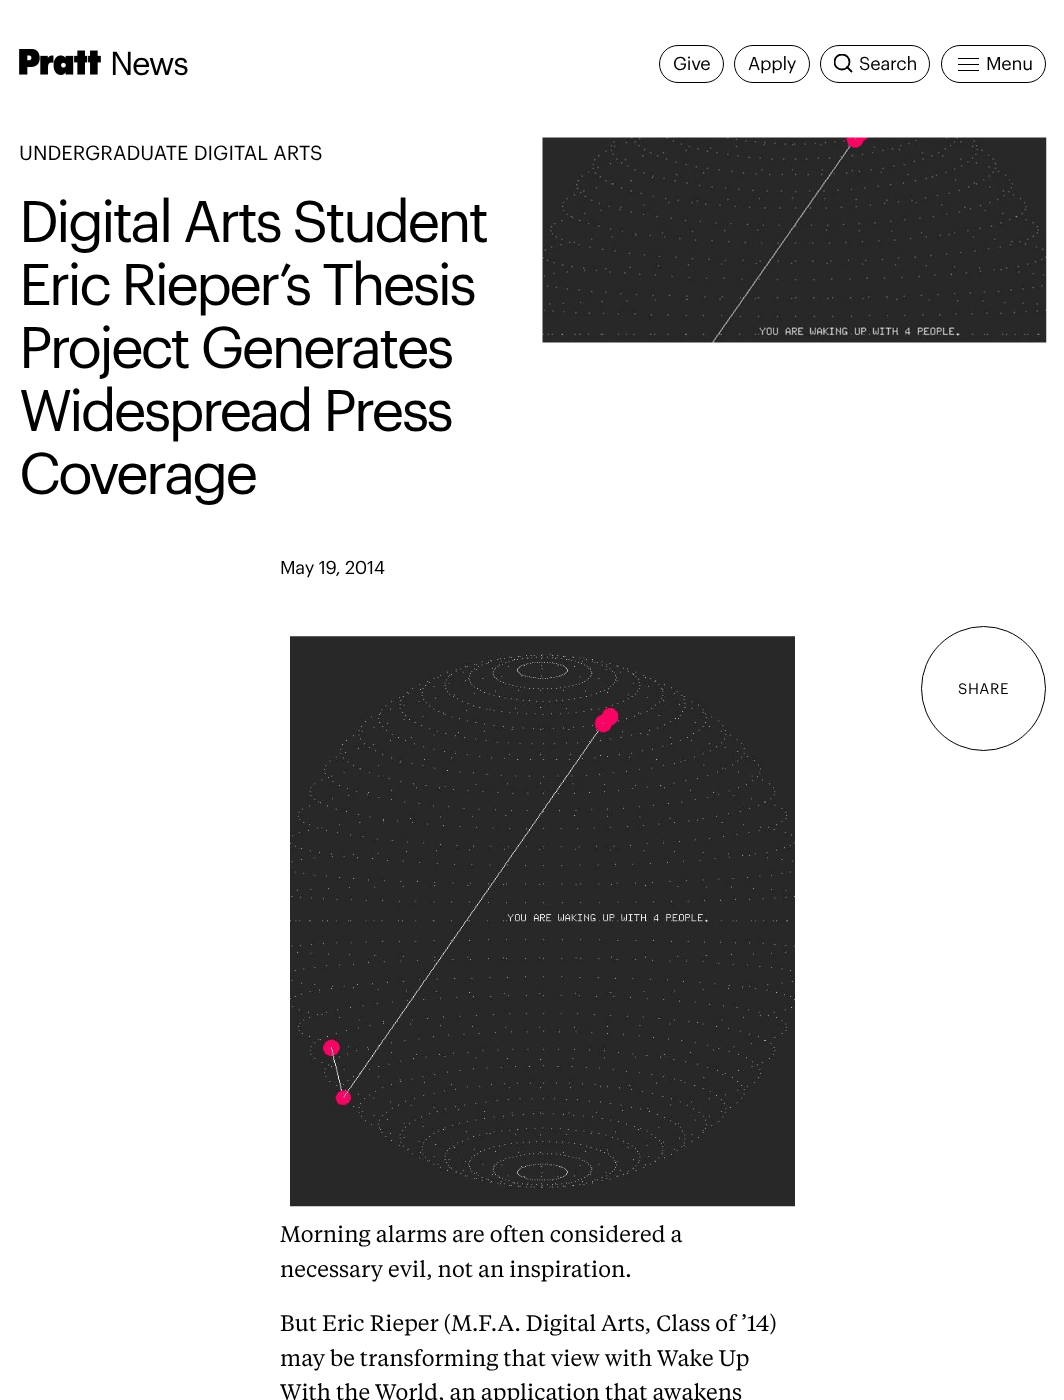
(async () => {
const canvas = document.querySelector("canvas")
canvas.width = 1064
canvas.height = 1400
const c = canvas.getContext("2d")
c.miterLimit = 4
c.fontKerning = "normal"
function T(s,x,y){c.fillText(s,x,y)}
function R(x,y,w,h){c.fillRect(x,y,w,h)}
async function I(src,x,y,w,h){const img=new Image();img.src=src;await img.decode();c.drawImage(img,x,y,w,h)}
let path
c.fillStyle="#fff"
R(0,0,1064,1400)
await I("1.png",19,49,82,26)
c.letterSpacing="-1.5px"
c.font="32.5px Graphik"
c.fillStyle="#000"
T("News",110,75)
c.beginPath()
c.roundRect(659.5,45.5,64,37,18.5)
c.strokeStyle="#000"
c.stroke()
c.letterSpacing="-0.25px"
c.font="18.25px Graphik"
T("Give",673,70)
c.beginPath()
c.roundRect(734.5,45.5,75,37,18.5)
c.stroke()
T("Apply",748,70)
c.beginPath()
c.roundRect(820.5,45.5,109,37,18.5)
c.stroke()
c.save()
c.beginPath()
c.rect(834,54,20,20)
c.clip()
c.beginPath()
c.arc(842,62,7.5,0,7)
c.lineWidth=1.8
c.stroke()
c.restore()
T("Search",859,70)
path = new Path2D("M846.5 66.5l5.5 5.5")
c.lineWidth=1.8
c.stroke(path)
c.beginPath()
c.roundRect(941.5,45.5,104,37,18.5)
c.lineWidth=1
c.stroke()
R(958,64,21,1)
R(958,58,21,1)
R(958,70,21,1)
T("Menu",986,70)
c.letterSpacing="0px"
c.font="20px Graphik"
T("UNDERGRADUATE DIGITAL ARTS",19,160)
c.letterSpacing="-2.9px"
c.font="57.5px Graphik"
T("Digital Arts Student",19,242)
T("Eric Rieper’s Thesis",19,305)
T("Project Generates",19,368)
T("Widespread Press",19,431)
T("Coverage",19,494)
await I("2.png",542,137,505,206)
c.letterSpacing="-0.25px"
c.font="18.25px Graphik"
T("May 19, 2014",280,574)
c.beginPath()
c.arc(983.5,688.5,62,0,7)
c.stroke()
c.letterSpacing="0.5px"
c.font="15px Graphik"
T("SHARE",958,694)
await I("3.png",290,636,505,571)
c.letterSpacing="0px"
c.font="22.3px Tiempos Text"
T("Morning alarms are often considered a",280,1242)
T("necessary evil, not an inspiration.",280,1277)
T("But Eric Rieper (M.F.A. Digital Arts, Class of ’14)",280,1331)
T("may be transforming that view with Wake Up",280,1366)
T("With the World, an application that awakens",280,1400)
})()
